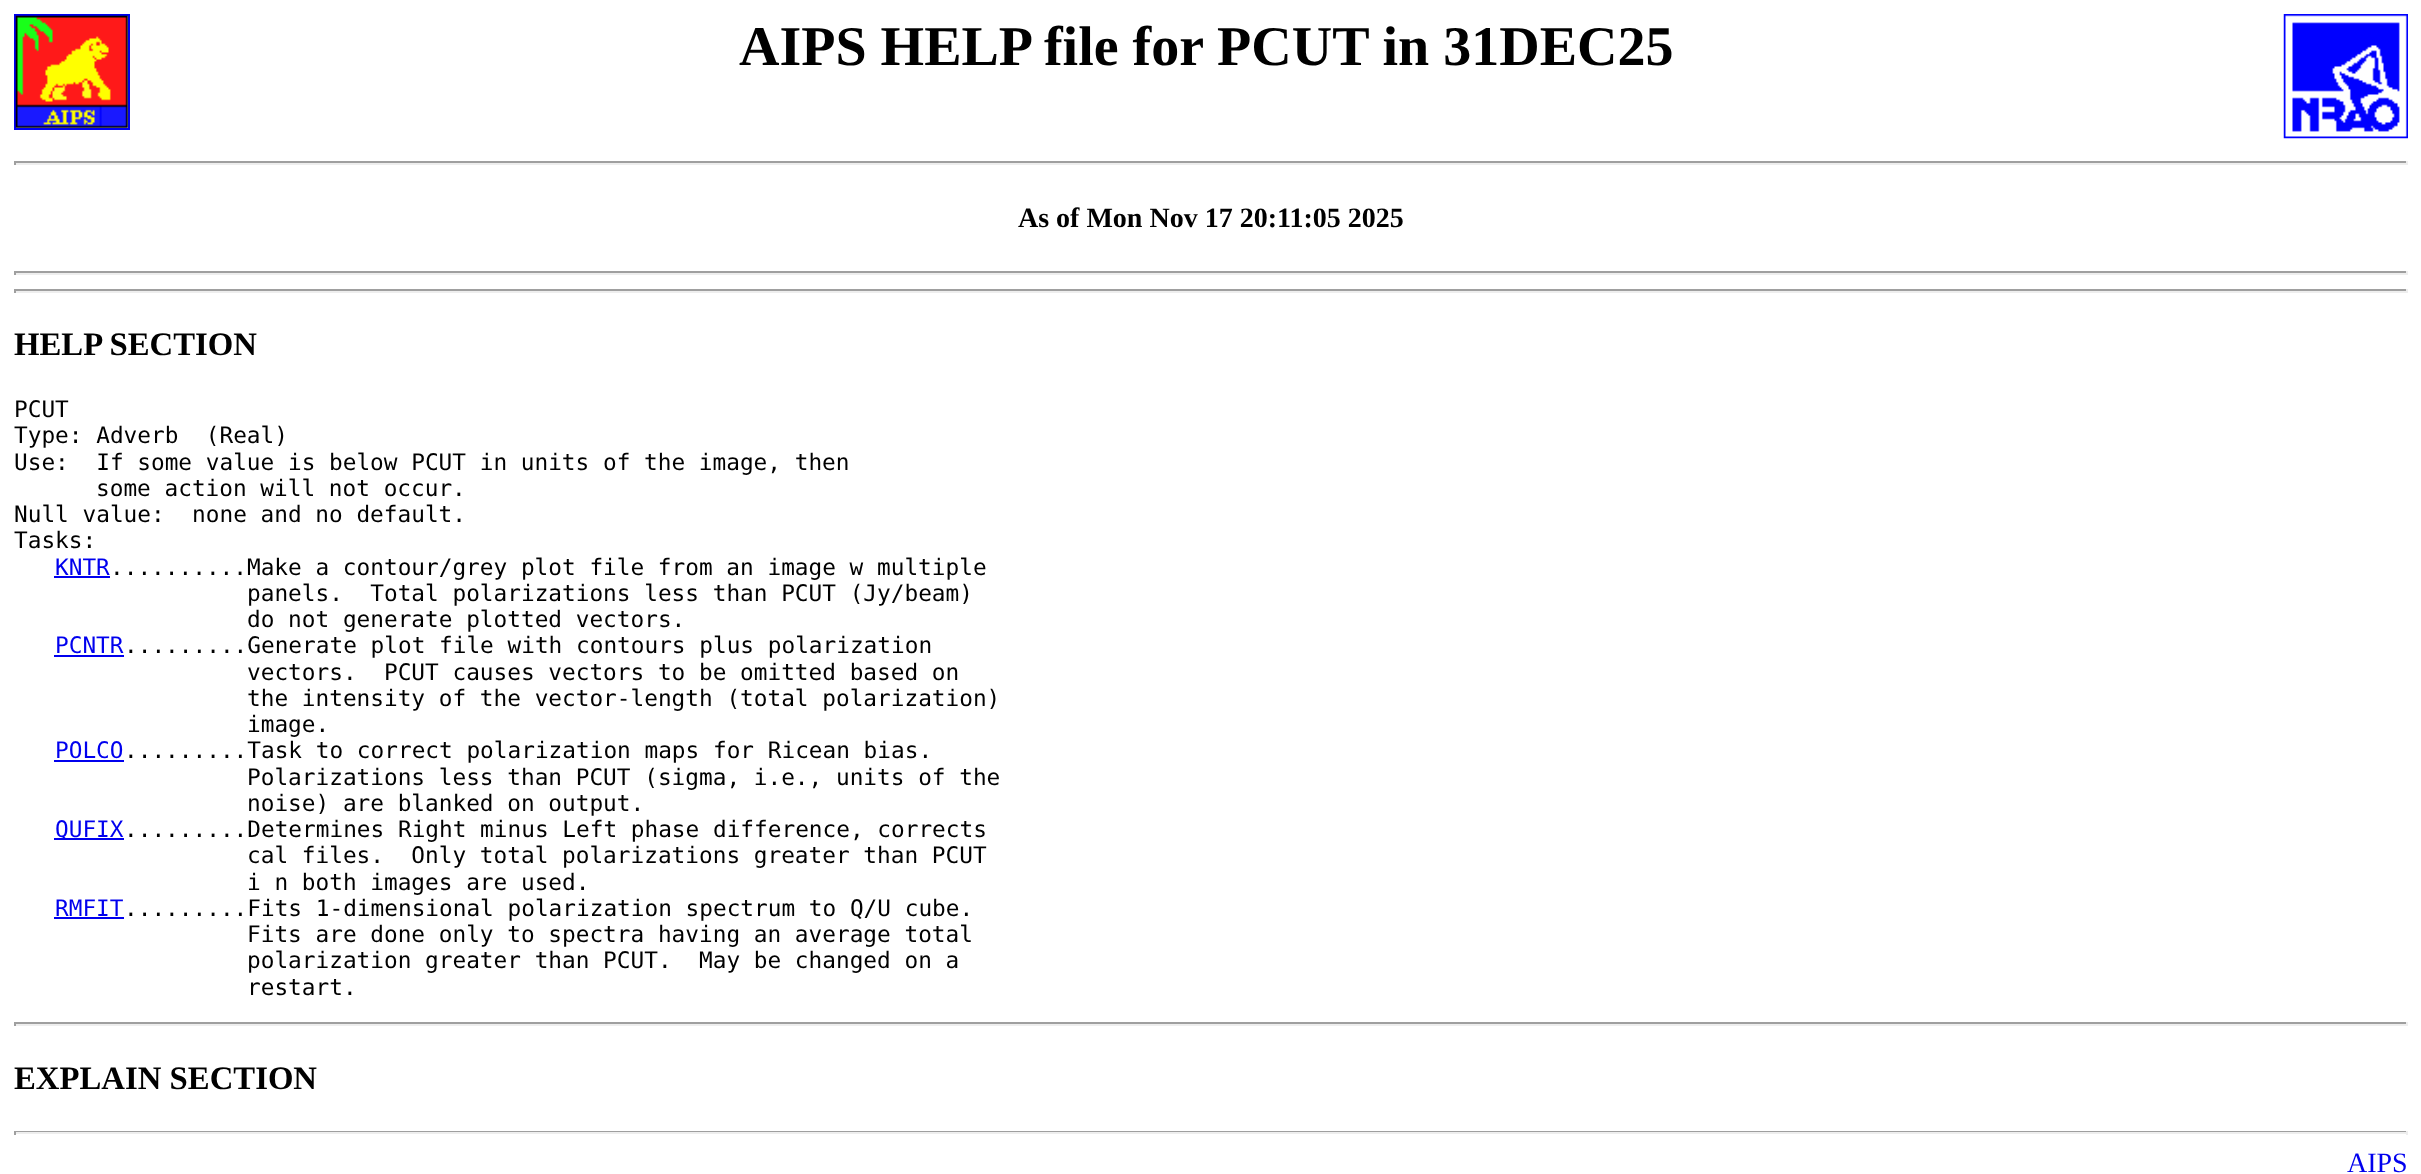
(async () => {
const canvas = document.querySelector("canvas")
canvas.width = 2421
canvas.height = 1174
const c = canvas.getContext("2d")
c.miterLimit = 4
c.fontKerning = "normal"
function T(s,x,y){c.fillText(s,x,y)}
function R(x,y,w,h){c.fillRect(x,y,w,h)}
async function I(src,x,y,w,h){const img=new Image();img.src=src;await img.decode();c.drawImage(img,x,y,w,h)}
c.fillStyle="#fff"
R(0,0,2421,1174)
c.strokeStyle="#00e"
c.lineWidth=2
c.strokeRect(15,15,114,114)
await I("1.png",15,15,113,113)
c.font="bold 56px Liberation Serif"
c.fillStyle="#000"
T("AIPS HELP file for PCUT in 31DEC25",739,65)
await I("2.png",2283,14,125,125)
c.fillStyle="#9f9f9f"
R(14,161,2394,2)
c.fillStyle="#eee"
R(2406,161,2,4)
R(14,163,2394,2)
c.fillStyle="#9f9f9f"
R(14,161,2,4)
c.font="bold 28px Liberation Serif"
c.fillStyle="#000"
T("As of Mon Nov 17 20:11:05 2025",1018,227)
c.fillStyle="#9f9f9f"
R(14,271,2394,2)
c.fillStyle="#eee"
R(2406,271,2,4)
R(14,273,2394,2)
c.fillStyle="#9f9f9f"
R(14,271,2,4)
R(14,289,2394,2)
c.fillStyle="#eee"
R(2406,289,2,4)
R(14,291,2394,2)
c.fillStyle="#9f9f9f"
R(14,289,2,4)
c.font="bold 32.75px Liberation Serif"
c.fillStyle="#000"
T("HELP SECTION",14,355)
c.font="22.75px DejaVu Sans Mono"
T("PCUT",14,417)
T("Type: Adverb  (Real)",14,443)
T("Use:  If some value is below PCUT in units of the image, then",14,470)
T("some action will not occur.",96,496)
T("Null value:  none and no default.",14,522)
T("Tasks:",14,548)
c.fillStyle="#00e"
T("KNTR",55,575)
R(54,576,56,2)
c.fillStyle="#000"
T("..........Make a contour/grey plot file from an image w multiple",110,575)
T("panels.  Total polarizations less than PCUT (Jy/beam)",247,601)
T("do not generate plotted vectors.",247,627)
c.fillStyle="#00e"
T("PCNTR",55,653)
R(54,655,70,2)
c.fillStyle="#000"
T(".........Generate plot file with contours plus polarization",124,653)
T("vectors.  PCUT causes vectors to be omitted based on",247,680)
T("the intensity of the vector-length (total polarization)",247,706)
T("image.",247,732)
c.fillStyle="#00e"
T("POLCO",55,758)
R(54,760,70,2)
c.fillStyle="#000"
T(".........Task to correct polarization maps for Ricean bias.",124,758)
T("Polarizations less than PCUT (sigma, i.e., units of the",247,785)
T("noise) are blanked on output.",247,811)
c.fillStyle="#00e"
R(54,838,70,2)
T("QUFIX",55,837)
c.fillStyle="#000"
T(".........Determines Right minus Left phase difference, corrects",124,837)
T("cal files.  Only total polarizations greater than PCUT",247,863)
T("i n both images are used.",247,890)
c.fillStyle="#00e"
T("RMFIT",55,916)
R(54,917,70,2)
c.fillStyle="#000"
T(".........Fits 1-dimensional polarization spectrum to Q/U cube.",124,916)
T("Fits are done only to spectra having an average total",247,942)
T("polarization greater than PCUT.  May be changed on a",247,968)
T("restart.",247,995)
c.fillStyle="#9f9f9f"
R(14,1022,2394,2)
c.fillStyle="#eee"
R(2406,1022,2,4)
R(14,1024,2394,2)
c.fillStyle="#9f9f9f"
R(14,1022,2,4)
c.font="bold 32.75px Liberation Serif"
c.fillStyle="#000"
T("EXPLAIN SECTION",14,1089)
c.fillStyle="#9f9f9f"
R(14,1131,2394,1)
c.fillStyle="#eee"
R(2406,1131,2,4)
R(14,1132,2394,2)
c.fillStyle="#9f9f9f"
R(14,1131,2,4)
c.font="28px Liberation Serif"
c.fillStyle="#00e"
T("AIPS",2347,1172)
})()
